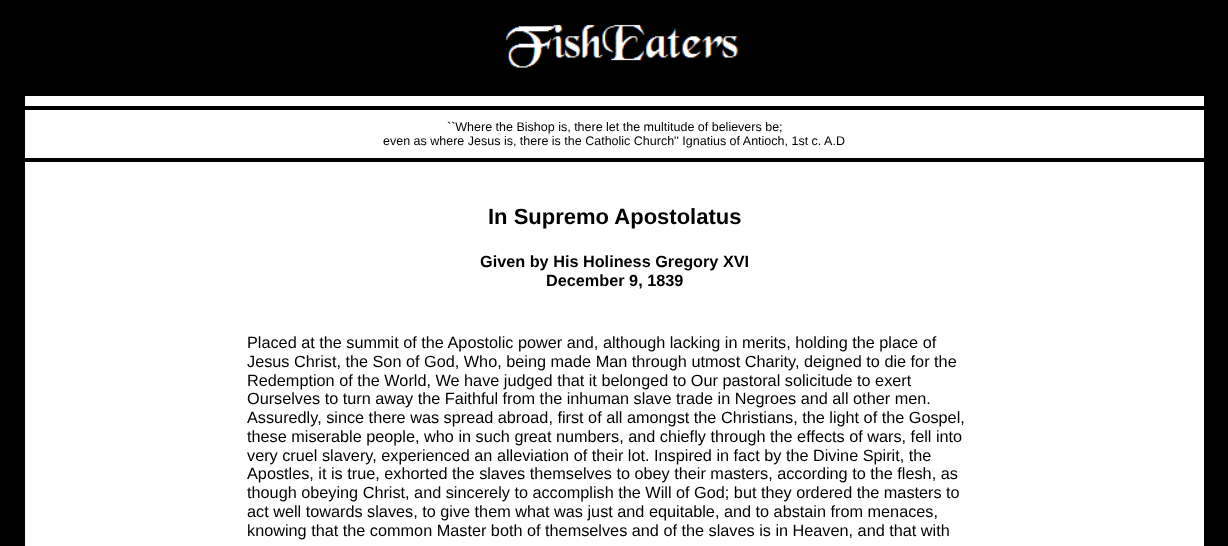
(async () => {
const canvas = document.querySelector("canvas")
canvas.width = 1228
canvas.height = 546
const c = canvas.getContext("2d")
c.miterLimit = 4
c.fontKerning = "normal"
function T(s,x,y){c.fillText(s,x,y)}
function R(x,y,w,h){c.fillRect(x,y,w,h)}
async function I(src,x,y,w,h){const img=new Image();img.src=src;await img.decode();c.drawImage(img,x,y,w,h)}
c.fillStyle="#000"
R(0,0,1228,546)
await I("1.png",504,24,234,44)
c.fillStyle="#fff"
R(25,96,1179,450)
c.fillStyle="#000"
R(25,106,1179,4)
c.font="12.5px Liberation Sans"
T("``Where the Bishop is, there let the multitude of believers be;",447,131)
T("even as where Jesus is, there is the Catholic Church'' Ignatius of Antioch, 1st c. A.D",383,145)
R(25,158,1179,4)
c.font="bold 22px Liberation Sans"
T("In Supremo Apostolatus",488,224)
c.font="bold 16.25px Liberation Sans"
T("Given by His Holiness Gregory XVI",480,267)
T("December 9, 1839",546,286)
c.font="16.25px Liberation Sans"
T("Placed at the summit of the Apostolic power and, although lacking in merits, holding the place of",247,348)
T("Jesus Christ, the Son of God, Who, being made Man through utmost Charity, deigned to die for the",247,367)
T("Redemption of the World, We have judged that it belonged to Our pastoral solicitude to exert",247,386)
T("Ourselves to turn away the Faithful from the inhuman slave trade in Negroes and all other men.",247,404)
T("Assuredly, since there was spread abroad, first of all amongst the Christians, the light of the Gospel,",247,423)
T("these miserable people, who in such great numbers, and chiefly through the effects of wars, fell into",247,442)
T("very cruel slavery, experienced an alleviation of their lot. Inspired in fact by the Divine Spirit, the",247,461)
T("Apostles, it is true, exhorted the slaves themselves to obey their masters, according to the flesh, as",247,479)
T("though obeying Christ, and sincerely to accomplish the Will of God; but they ordered the masters to",247,498)
T("act well towards slaves, to give them what was just and equitable, and to abstain from menaces,",247,517)
T("knowing that the common Master both of themselves and of the slaves is in Heaven, and that with",247,536)
})()
